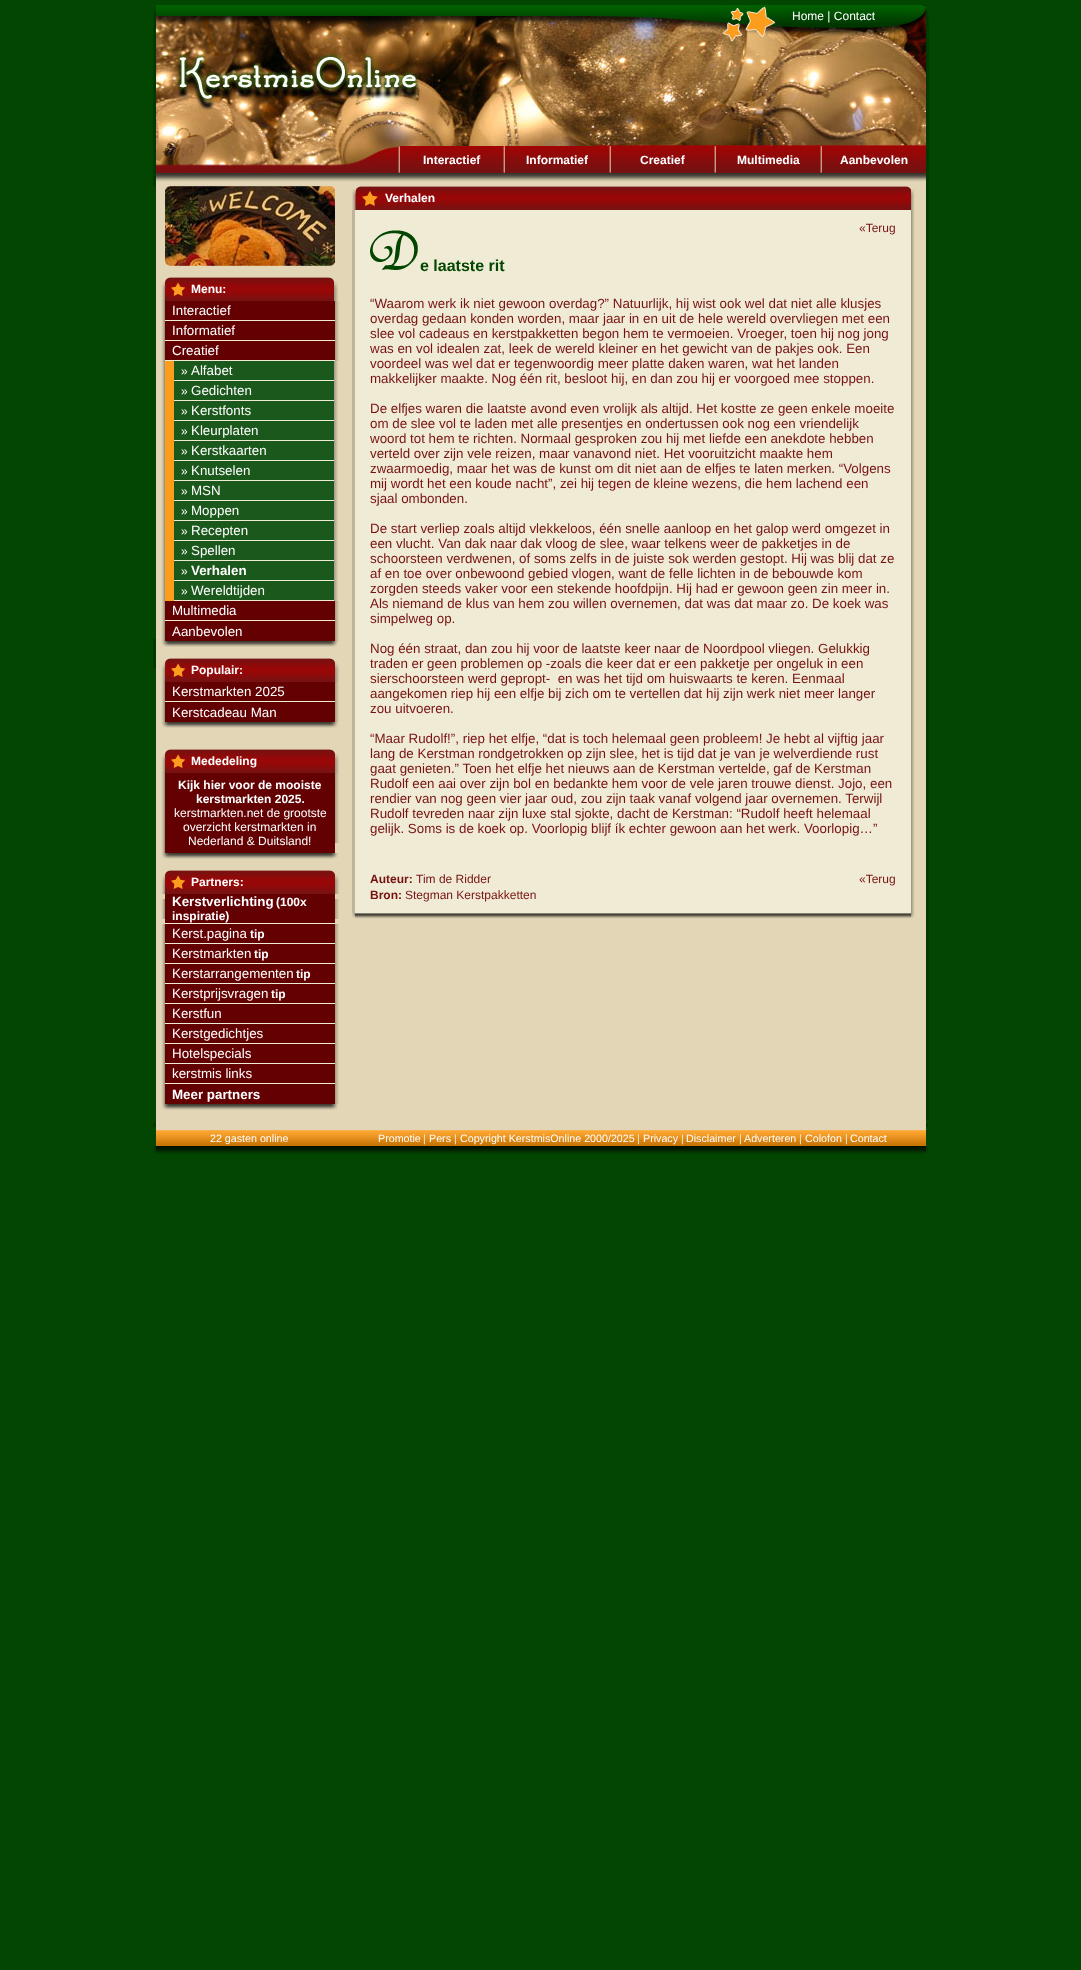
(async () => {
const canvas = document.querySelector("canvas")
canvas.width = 1081
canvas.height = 1970
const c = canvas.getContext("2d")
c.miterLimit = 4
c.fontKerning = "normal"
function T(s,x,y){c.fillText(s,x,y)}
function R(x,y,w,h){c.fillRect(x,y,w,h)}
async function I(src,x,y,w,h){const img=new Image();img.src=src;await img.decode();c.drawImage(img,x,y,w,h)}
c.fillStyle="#024602"
R(0,0,1081,1970)
await I("1.png",153,9,3,17)
await I("2.png",156,5,630,21)
await I("3.png",786,5,140,21)
c.font="12px Liberation Sans"
c.fillStyle="#fff"
T("Home | Contact",792,20)
await I("4.png",926,9,3,17)
c.fillStyle="#023902"
R(153,26,3,160)
await I("5.png",156,26,770,120)
R(926,26,3,160)
await I("6.png",156,169,242,4)
await I("7.png",156,146,242,23)
await I("8.png",398,146,2,27)
await I("9.png",400,146,103,27)
c.font="bold 12px Liberation Sans"
c.fillStyle="#fff"
T("Interactief",423,164)
await I("8.png",503,146,2,27)
await I("10.png",505,146,104,27)
T("Informatief",526,164)
await I("8.png",609,146,2,27)
await I("9.png",611,146,103,27)
T("Creatief",640,164)
await I("8.png",714,146,2,27)
await I("10.png",716,146,104,27)
T("Multimedia",737,164)
await I("8.png",820,146,2,27)
await I("10.png",822,146,104,27)
T("Aanbevolen",840,164)
await I("11.png",156,173,770,9)
c.fillStyle="#e2d6b7"
R(156,182,770,948)
c.fillStyle="#023902"
R(153,639,3,29)
await I("12.png",165,186,170,80)
await I("13.png",161,281,4,20)
await I("14.png",165,277,169,24)
c.fillStyle="#fff"
T("Menu:",191,293)
await I("15.png",334,281,4,20)
await I("16.png",161,301,4,20)
c.fillStyle="#630102"
R(165,301,170,19)
c.fillStyle="#f0ebd5"
R(165,320,170,1)
c.font="13.35px Liberation Sans"
c.fillStyle="#fff"
T("Interactief",172,315)
await I("17.png",335,301,4,20)
await I("16.png",161,321,4,20)
c.fillStyle="#630102"
R(165,321,170,19)
c.fillStyle="#f0ebd5"
R(165,340,170,1)
c.fillStyle="#fff"
T("Informatief",172,335)
await I("17.png",335,321,4,20)
await I("16.png",161,341,4,20)
c.fillStyle="#630102"
R(165,341,170,19)
c.fillStyle="#f0ebd5"
R(165,360,170,1)
c.fillStyle="#fff"
T("Creatief",172,355)
await I("17.png",335,341,4,20)
await I("16.png",161,361,4,20)
c.fillStyle="#fc9d1d"
R(165,361,9,240)
c.fillStyle="#1b581b"
R(174,361,160,19)
c.fillStyle="#f0ebd5"
R(174,380,160,1)
c.font="12px Liberation Sans"
c.fillStyle="#fff"
T("»",181,375)
c.font="13.35px Liberation Sans"
T("Alfabet",191,375)
await I("17.png",334,361,4,20)
await I("16.png",161,381,4,20)
c.fillStyle="#1b581b"
R(174,381,160,19)
c.fillStyle="#f0ebd5"
R(174,400,160,1)
c.font="12px Liberation Sans"
c.fillStyle="#fff"
T("»",181,395)
c.font="13.35px Liberation Sans"
T("Gedichten",191,395)
await I("17.png",334,381,4,20)
await I("16.png",161,401,4,20)
c.fillStyle="#1b581b"
R(174,401,160,19)
c.fillStyle="#f0ebd5"
R(174,420,160,1)
c.font="12px Liberation Sans"
c.fillStyle="#fff"
T("»",181,415)
c.font="13.35px Liberation Sans"
T("Kerstfonts",191,415)
await I("17.png",334,401,4,20)
await I("16.png",161,421,4,20)
c.fillStyle="#1b581b"
R(174,421,160,19)
c.fillStyle="#f0ebd5"
R(174,440,160,1)
c.font="12px Liberation Sans"
c.fillStyle="#fff"
T("»",181,435)
c.font="13.35px Liberation Sans"
T("Kleurplaten",191,435)
await I("17.png",334,421,4,20)
await I("16.png",161,441,4,20)
c.fillStyle="#1b581b"
R(174,441,160,19)
c.fillStyle="#f0ebd5"
R(174,460,160,1)
c.font="12px Liberation Sans"
c.fillStyle="#fff"
T("»",181,455)
c.font="13.35px Liberation Sans"
T("Kerstkaarten",191,455)
await I("17.png",334,441,4,20)
await I("16.png",161,461,4,20)
c.fillStyle="#1b581b"
R(174,461,160,19)
c.fillStyle="#f0ebd5"
R(174,480,160,1)
c.font="12px Liberation Sans"
c.fillStyle="#fff"
T("»",181,475)
c.font="13.35px Liberation Sans"
T("Knutselen",191,475)
await I("17.png",334,461,4,20)
await I("16.png",161,481,4,20)
c.fillStyle="#1b581b"
R(174,481,160,19)
c.fillStyle="#f0ebd5"
R(174,500,160,1)
c.font="12px Liberation Sans"
c.fillStyle="#fff"
T("»",181,495)
c.font="13.35px Liberation Sans"
T("MSN",191,495)
await I("17.png",334,481,4,20)
await I("16.png",161,501,4,20)
c.fillStyle="#1b581b"
R(174,501,160,19)
c.fillStyle="#f0ebd5"
R(174,520,160,1)
c.font="12px Liberation Sans"
c.fillStyle="#fff"
T("»",181,515)
c.font="13.35px Liberation Sans"
T("Moppen",191,515)
await I("17.png",334,501,4,20)
await I("16.png",161,521,4,20)
c.fillStyle="#1b581b"
R(174,521,160,19)
c.fillStyle="#f0ebd5"
R(174,540,160,1)
c.font="12px Liberation Sans"
c.fillStyle="#fff"
T("»",181,535)
c.font="13.35px Liberation Sans"
T("Recepten",191,535)
await I("17.png",334,521,4,20)
await I("16.png",161,541,4,20)
c.fillStyle="#1b581b"
R(174,541,160,19)
c.fillStyle="#f0ebd5"
R(174,560,160,1)
c.font="12px Liberation Sans"
c.fillStyle="#fff"
T("»",181,555)
c.font="13.35px Liberation Sans"
T("Spellen",191,555)
await I("17.png",334,541,4,20)
await I("16.png",161,561,4,20)
c.fillStyle="#1b581b"
R(174,561,160,19)
c.fillStyle="#f0ebd5"
R(174,580,160,1)
c.font="12px Liberation Sans"
c.fillStyle="#fff"
T("»",181,575)
c.font="bold 13.35px Liberation Sans"
T("Verhalen",191,575)
await I("17.png",334,561,4,20)
await I("16.png",161,581,4,20)
c.fillStyle="#1b581b"
R(174,581,160,19)
c.fillStyle="#f0ebd5"
R(174,600,160,1)
c.font="12px Liberation Sans"
c.fillStyle="#fff"
T("»",181,595)
c.font="13.35px Liberation Sans"
T("Wereldtijden",191,595)
await I("17.png",334,581,4,20)
await I("16.png",161,601,4,20)
c.fillStyle="#630102"
R(165,601,170,19)
c.fillStyle="#f0ebd5"
R(165,620,170,1)
c.fillStyle="#fff"
T("Multimedia",172,615)
await I("17.png",335,601,4,20)
await I("16.png",161,621,4,20)
c.fillStyle="#630102"
R(165,621,170,20)
c.fillStyle="#fff"
T("Aanbevolen",172,636)
await I("17.png",335,621,4,20)
await I("18.png",161,641,4,6)
await I("19.png",165,641,170,6)
await I("20.png",335,641,3,6)
await I("13.png",161,662,4,20)
await I("21.png",165,658,170,24)
c.font="bold 12px Liberation Sans"
T("Populair:",191,674)
await I("15.png",335,662,4,20)
await I("16.png",161,682,4,20)
c.fillStyle="#630102"
R(165,682,170,19)
c.fillStyle="#f0ebd5"
R(165,701,170,1)
c.font="13.35px Liberation Sans"
c.fillStyle="#fff"
T("Kerstmarkten 2025",172,696)
await I("17.png",335,682,4,20)
await I("16.png",161,702,4,20)
c.fillStyle="#630102"
R(165,702,170,20)
c.fillStyle="#fff"
T("Kerstcadeau Man",172,717)
await I("17.png",335,702,4,20)
await I("18.png",161,722,4,6)
await I("19.png",165,722,170,6)
await I("20.png",335,722,3,6)
await I("13.png",161,753,4,20)
await I("21.png",165,749,170,24)
c.font="bold 12px Liberation Sans"
T("Mededeling",191,765)
await I("15.png",335,753,4,20)
await I("22.png",161,773,4,80)
c.fillStyle="#630102"
R(165,773,170,80)
c.fillStyle="#fff"
T("Kijk hier voor de mooiste",178,789)
T("kerstmarkten 2025.",196,803)
c.font="12px Liberation Sans"
T("kerstmarkten.net de grootste",174,817)
T("overzicht kerstmarkten in",183,831)
T("Nederland & Duitsland!",188,845)
await I("23.png",335,773,4,70)
await I("18.png",161,853,4,6)
await I("19.png",165,853,170,6)
await I("20.png",335,853,3,6)
await I("13.png",161,874,4,20)
await I("21.png",165,870,170,24)
c.font="bold 12px Liberation Sans"
T("Partners:",191,886)
await I("15.png",335,874,4,20)
await I("16.png",161,899,4,20)
c.fillStyle="#630102"
R(165,894,170,29)
c.fillStyle="#f0ebd5"
R(165,923,170,1)
c.font="bold 13.35px Liberation Sans"
c.fillStyle="#fff"
T("Kerstverlichting",172,906)
c.font="bold 12px Liberation Sans"
T("(100x",276,906)
T("inspiratie)",172,920)
await I("17.png",335,899,4,20)
await I("16.png",161,924,4,20)
c.fillStyle="#630102"
R(165,924,170,19)
c.fillStyle="#f0ebd5"
R(165,943,170,1)
c.font="13.35px Liberation Sans"
c.fillStyle="#fff"
T("Kerst.pagina",172,938)
c.font="bold 12px Liberation Sans"
T("tip",250,938)
await I("17.png",335,924,4,20)
await I("16.png",161,944,4,20)
c.fillStyle="#630102"
R(165,944,170,19)
c.fillStyle="#f0ebd5"
R(165,963,170,1)
c.font="13.35px Liberation Sans"
c.fillStyle="#fff"
T("Kerstmarkten",172,958)
c.font="bold 12px Liberation Sans"
T("tip",254,958)
await I("17.png",335,944,4,20)
await I("16.png",161,964,4,20)
c.fillStyle="#630102"
R(165,964,170,19)
c.fillStyle="#f0ebd5"
R(165,983,170,1)
c.font="13.35px Liberation Sans"
c.fillStyle="#fff"
T("Kerstarrangementen",172,978)
c.font="bold 12px Liberation Sans"
T("tip",296,978)
await I("17.png",335,964,4,20)
await I("16.png",161,984,4,20)
c.fillStyle="#630102"
R(165,984,170,19)
c.fillStyle="#f0ebd5"
R(165,1003,170,1)
c.font="13.35px Liberation Sans"
c.fillStyle="#fff"
T("Kerstprijsvragen",172,998)
c.font="bold 12px Liberation Sans"
T("tip",271,998)
await I("17.png",335,984,4,20)
await I("16.png",161,1004,4,20)
c.fillStyle="#630102"
R(165,1004,170,19)
c.fillStyle="#f0ebd5"
R(165,1023,170,1)
c.font="13.35px Liberation Sans"
c.fillStyle="#fff"
T("Kerstfun",172,1018)
await I("17.png",335,1004,4,20)
await I("16.png",161,1024,4,20)
c.fillStyle="#630102"
R(165,1024,170,19)
c.fillStyle="#f0ebd5"
R(165,1043,170,1)
c.fillStyle="#fff"
T("Kerstgedichtjes",172,1038)
await I("17.png",335,1024,4,20)
await I("16.png",161,1044,4,20)
c.fillStyle="#630102"
R(165,1044,170,19)
c.fillStyle="#f0ebd5"
R(165,1063,170,1)
c.fillStyle="#fff"
T("Hotelspecials",172,1058)
await I("17.png",335,1044,4,20)
await I("16.png",161,1064,4,20)
c.fillStyle="#630102"
R(165,1064,170,19)
c.fillStyle="#f0ebd5"
R(165,1083,170,1)
c.fillStyle="#fff"
T("kerstmis links",172,1078)
await I("17.png",335,1064,4,20)
await I("16.png",161,1084,4,20)
c.fillStyle="#630102"
R(165,1084,170,20)
c.font="bold 13.35px Liberation Sans"
c.fillStyle="#fff"
T("Meer partners",172,1099)
await I("17.png",335,1084,4,20)
await I("18.png",161,1104,4,6)
await I("19.png",165,1104,170,6)
await I("20.png",335,1104,3,6)
await I("24.png",352,189,3,21)
await I("25.png",355,186,556,24)
c.font="bold 12px Liberation Sans"
T("Verhalen",385,202)
await I("26.png",911,189,4,21)
c.fillStyle="#bfb59b"
R(352,210,3,703)
c.fillStyle="#f0ebd5"
R(355,210,556,703)
c.font="12px Liberation Sans"
c.fillStyle="#761212"
T("«Terug",859,232)
await I("27.png",370,230,48,40)
c.font="bold 16px Liberation Sans"
c.fillStyle="#024602"
T("e laatste rit",420,271)
c.font="13.35px Liberation Sans"
c.fillStyle="#761212"
T("“Waarom werk ik niet gewoon overdag?” Natuurlijk, hij wist ook wel dat niet alle klusjes",370,308)
T("overdag gedaan konden worden, maar jaar in en uit de hele wereld overvliegen met een",370,323)
T("slee vol cadeaus en kerstpakketten begon hem te vermoeien. Vroeger, toen hij nog jong",370,338)
T("was en vol idealen zat, leek de wereld kleiner en het gewicht van de pakjes ook. Een",370,353)
T("voordeel was wel dat er tegenwoordig meer platte daken waren, wat het landen",370,368)
T("makkelijker maakte. Nog één rit, besloot hij, en dan zou hij er voorgoed mee stoppen.",370,383)
T("De elfjes waren die laatste avond even vrolijk als altijd. Het kostte ze geen enkele moeite",370,413)
T("om de slee vol te laden met alle presentjes en ondertussen ook nog een vriendelijk",370,428)
T("woord tot hem te richten. Normaal gesproken zou hij met liefde een anekdote hebben",370,443)
T("verteld over zijn vele reizen, maar vanavond niet. Het vooruitzicht maakte hem",370,458)
T("zwaarmoedig, maar het was de kunst om dit niet aan de elfjes te laten merken. “Volgens",370,473)
T("mij wordt het een koude nacht”, zei hij tegen de kleine wezens, die hem lachend een",370,488)
T("sjaal ombonden.",370,503)
T("De start verliep zoals altijd vlekkeloos, één snelle aanloop en het galop werd omgezet in",370,533)
T("een vlucht. Van dak naar dak vloog de slee, waar telkens weer de pakketjes in de",370,548)
T("schoorsteen verdwenen, of soms zelfs in de juiste sok werden gestopt. Hij was blij dat ze",370,563)
T("af en toe over onbewoond gebied vlogen, want de felle lichten in de bebouwde kom",370,578)
T("zorgden steeds vaker voor een stekende hoofdpijn. Hij had er gewoon geen zin meer in.",370,593)
T("Als niemand de klus van hem zou willen overnemen, dat was dat maar zo. De koek was",370,608)
T("simpelweg op.",370,623)
T("Nog één straat, dan zou hij voor de laatste keer naar de Noordpool vliegen. Gelukkig",370,653)
T("traden er geen problemen op -zoals die keer dat er een pakketje per ongeluk in een",370,668)
T("sierschoorsteen werd gepropt-  en was het tijd om huiswaarts te keren. Eenmaal",370,683)
T("aangekomen riep hij een elfje bij zich om te vertellen dat hij zijn werk niet meer langer",370,698)
T("zou uitvoeren.",370,713)
T("“Maar Rudolf!”, riep het elfje, “dat is toch helemaal geen probleem! Je hebt al vijftig jaar",370,743)
T("lang de Kerstman rondgetrokken op zijn slee, het is tijd dat je van je welverdiende rust",370,758)
T("gaat genieten.” Toen het elfje het nieuws aan de Kerstman vertelde, gaf de Kerstman",370,773)
T("Rudolf een aai over zijn bol en bedankte hem voor de vele jaren trouwe dienst. Jojo, een",370,788)
T("rendier van nog geen vier jaar oud, zou zijn taak vanaf volgend jaar overnemen. Terwijl",370,803)
T("Rudolf tevreden naar zijn luxe stal sjokte, dacht de Kerstman: “Rudolf heeft helemaal",370,818)
T("gelijk. Soms is de koek op. Voorlopig blijf ík echter gewoon aan het werk. Voorlopig…”",370,833)
c.font="bold 12px Liberation Sans"
T("Auteur:",370,883)
c.font="12px Liberation Sans"
T("Tim de Ridder",416,883)
T("«Terug",859,883)
c.font="bold 12px Liberation Sans"
T("Bron:",370,899)
c.font="12px Liberation Sans"
T("Stegman Kerstpakketten",405,899)
await I("28.png",911,210,4,703)
await I("29.png",352,913,3,5)
await I("30.png",355,913,556,6)
await I("31.png",911,913,4,5)
c.fillStyle="#023902"
R(926,186,3,934)
R(153,1123,3,4)
await I("32.png",926,1123,2,4)
await I("33.png",156,1130,770,16)
c.font="10.7px Liberation Sans"
c.fillStyle="#fff"
T("22 gasten online",210,1142)
T("Promotie",378,1142)
c.fillStyle="#f0ebd5"
T("|",423,1142)
c.fillStyle="#fff"
T("Pers",429,1142)
c.fillStyle="#f0ebd5"
T("|",454,1142)
c.fillStyle="#fff"
T("Copyright KerstmisOnline 2000/2025",460,1142)
c.fillStyle="#f0ebd5"
T("|",637,1142)
c.fillStyle="#fff"
T("Privacy",643,1142)
c.fillStyle="#f0ebd5"
T("|",681,1142)
c.fillStyle="#fff"
T("Disclaimer",686,1142)
c.fillStyle="#f0ebd5"
T("|",739,1142)
c.fillStyle="#fff"
T("Adverteren",744,1142)
c.fillStyle="#f0ebd5"
T("|",799,1142)
c.fillStyle="#fff"
T("Colofon",805,1142)
c.fillStyle="#f0ebd5"
T("|",845,1142)
c.fillStyle="#fff"
T("Contact",850,1142)
await I("34.png",153,1146,3,7)
await I("35.png",156,1146,770,8)
await I("36.png",926,1146,2,7)
})()
